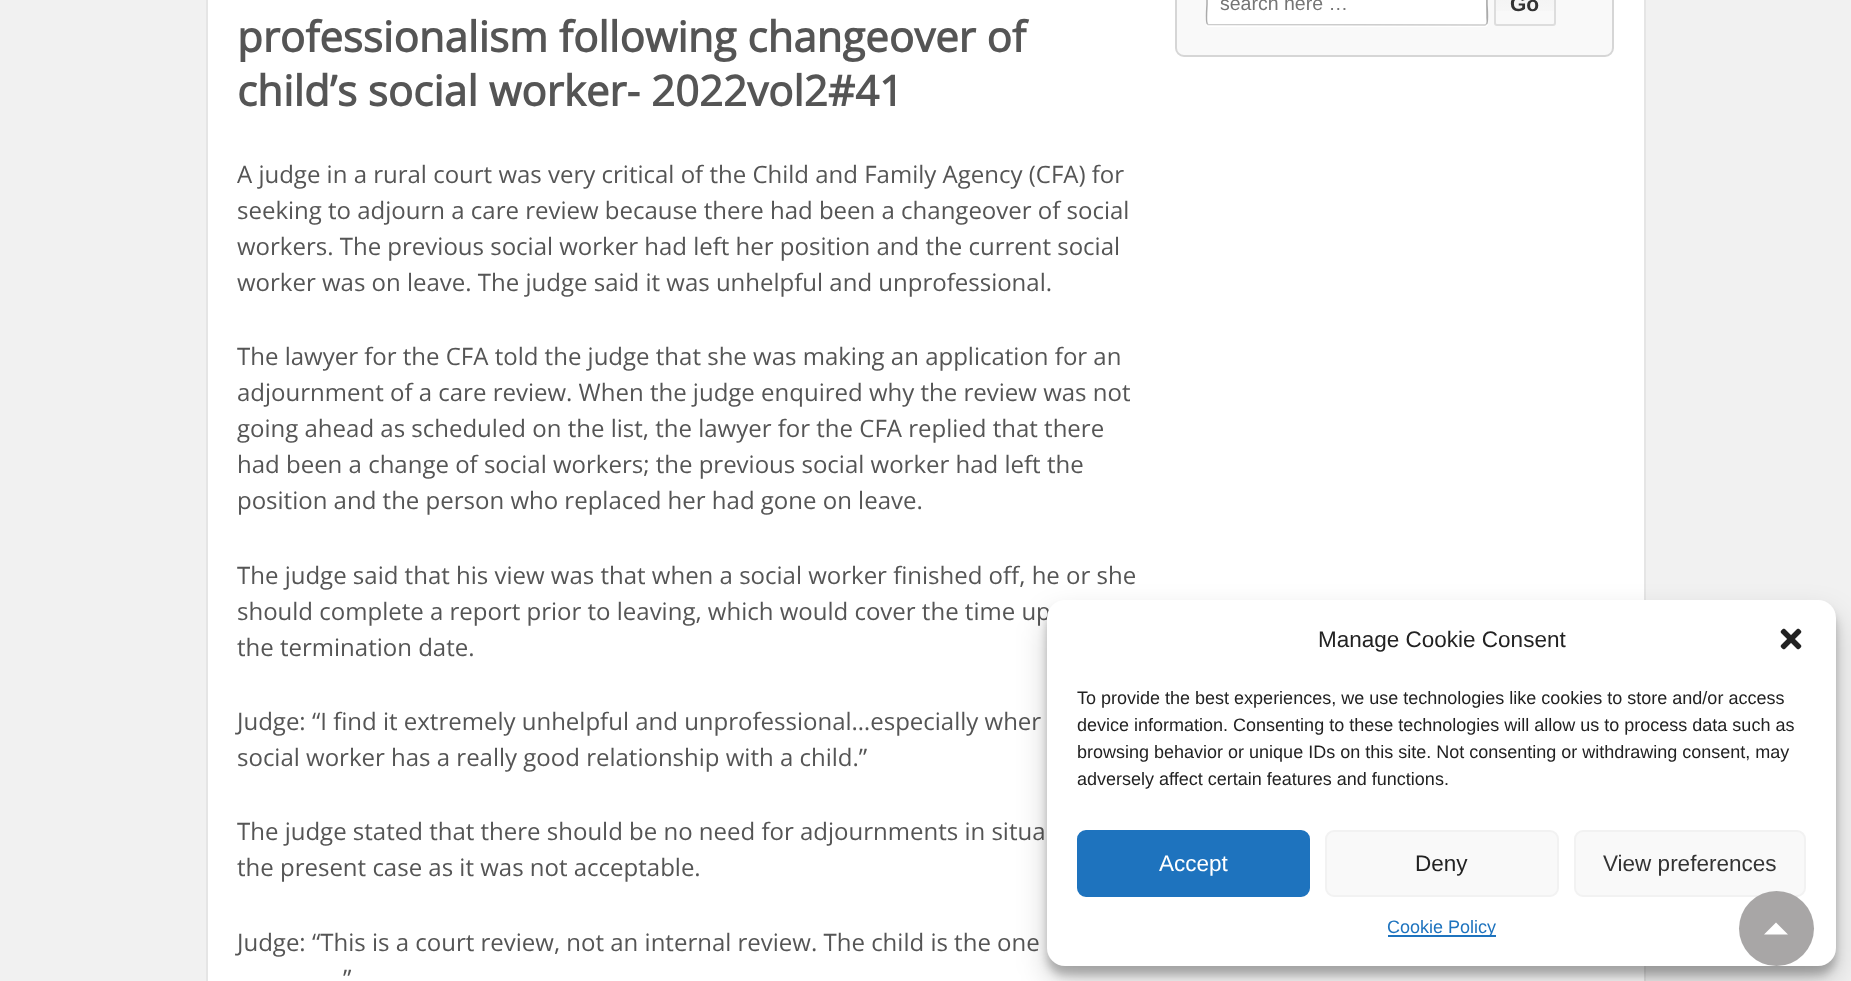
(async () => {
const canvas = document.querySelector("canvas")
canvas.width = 1851
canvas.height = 981
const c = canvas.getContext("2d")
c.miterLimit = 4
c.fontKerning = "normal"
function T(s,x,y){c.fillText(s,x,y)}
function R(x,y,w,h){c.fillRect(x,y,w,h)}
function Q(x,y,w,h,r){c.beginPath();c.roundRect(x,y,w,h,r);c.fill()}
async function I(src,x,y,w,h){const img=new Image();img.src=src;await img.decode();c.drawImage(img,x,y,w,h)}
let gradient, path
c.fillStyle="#f1f1f1"
R(0,0,1851,981)
c.fillStyle="#fff"
c.beginPath()
c.rect(207,-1,1438,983)
c.fill()
c.strokeStyle="#e5e5e5"
c.lineWidth=2
c.stroke()
c.fillStyle="#f9f9f9"
c.beginPath()
c.roundRect(1176,-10,437,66,8)
c.fill()
c.strokeStyle="#d6d6d6"
c.stroke()
c.fillStyle="#fff"
path = new Path2D("M1206 22v2c0 2 1 3 3 3h276c2 0 3-1 3-3v-2c0 2-1 4-3 4h-276c-2 0-3-2-3-4z")
c.fill(path)
Q(1206,-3,282,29,3)
c.fillStyle="#ccc"
path = new Path2D("M1209-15h277l1 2l-1 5v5v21l1 5v-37c0-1-1-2-1-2h-276c-1 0-2 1-2 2z")
c.fill(path)
path = new Path2D("M1486.5 24l-1.5 1l-277-.5l-.5-.5")
c.strokeStyle="#ccc"
c.lineWidth=1.5
c.stroke(path)
path = new Path2D("M1207.5 24c-2-1.5-.5-17-.5-20v-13c0-.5-2-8 2-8h276c4 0 2 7.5 2 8v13c0 3 1.5 18.5-.5 20")
c.strokeStyle="#aaa"
c.stroke(path)
c.font="19.5px Liberation Sans"
c.fillStyle="#757575"
T("search here …",1220,10)
gradient = c.createLinearGradient(1525,24,1525,-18)
gradient.addColorStop(0,"#f9f9f9")
gradient.addColorStop(1,"#f1f1f1")
c.fillStyle = gradient
R(1494,0,62,11)
c.beginPath()
c.roundRect(1495,-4,60,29,2)
c.strokeStyle="#ddd"
c.lineWidth=2
c.stroke()
c.font="bold 21px Liberation Sans"
c.fillStyle="#333"
T("Go",1510,11)
c.font="bold 42px Open Sans"
c.fillStyle="#555"
T("professionalism following changeover of",237,52)
T("child’s social worker- 2022vol2#41",237,106)
c.font="24px Open Sans"
T("A judge in a rural court was very critical of the Child and Family Agency (CFA) for",237,183)
T("seeking to adjourn a care review because there had been a changeover of social",237,219)
T("workers. The previous social worker had left her position and the current social",237,255)
T("worker was on leave. The judge said it was unhelpful and unprofessional.",237,291)
T("The lawyer for the CFA told the judge that she was making an application for an",237,365)
T("adjournment of a care review. When the judge enquired why the review was not",237,401)
T("going ahead as scheduled on the list, the lawyer for the CFA replied that there",237,437)
T("had been a change of social workers; the previous social worker had left the",237,473)
T("position and the person who replaced her had gone on leave.",237,509)
T("The judge said that his view was that when a social worker finished off, he or she",237,584)
T("should complete a report prior to leaving, which would cover the time up",237,620)
T("the termination date.",237,656)
T("Judge: “I find it extremely unhelpful and unprofessional…especially wher",237,730)
T("social worker has a really good relationship with a child.”",237,766)
T("The judge stated that there should be no need for adjournments in situa",237,840)
T("the present case as it was not acceptable.",237,876)
T("Judge: “This is a court review, not an internal review. The child is the one",237,951)
T("”",343,987)
c.fillStyle="#0000003b"
c.filter="blur(4.5px)"
c.beginPath()
c.roundRect(1047,609,789,366,18)
c.fill()
c.filter="none"
c.fillStyle="#00000030"
c.filter="blur(15px)"
c.beginPath()
c.roundRect(1047,615,789,366,18)
c.fill()
c.filter="none"
c.fillStyle="#fff"
Q(1047,600,789,366,18)
c.font="22.5px Liberation Sans"
c.fillStyle="#222"
T("Manage Cookie Consent",1318,647)
await I("1.png",1780,628,22,22)
c.font="18px Liberation Sans"
T("To provide the best experiences, we use technologies like cookies to store and/or access",1077,704)
T("device information. Consenting to these technologies will allow us to process data such as",1077,731)
T("browsing behavior or unique IDs on this site. Not consenting or withdrawing consent, may",1077,758)
T("adversely affect certain features and functions.",1077,785)
c.fillStyle="#1e73be"
c.beginPath()
c.roundRect(1078,831,231,65,8)
c.fill()
c.strokeStyle="#1e73be"
c.stroke()
c.font="22.5px Liberation Sans"
c.fillStyle="#fff"
T("Accept",1159,871)
c.fillStyle="#f9f9f9"
c.beginPath()
c.roundRect(1326,831,232,65,8)
c.fill()
c.strokeStyle="#f2f2f2"
c.stroke()
c.fillStyle="#222"
T("Deny",1415,871)
c.fillStyle="#f9f9f9"
c.beginPath()
c.roundRect(1575,831,230,65,8)
c.fill()
c.stroke()
c.fillStyle="#333"
T("View preferences",1603,871)
c.fillStyle="#1e73be"
R(1388,935,108,2)
c.font="18px Liberation Sans"
T("Cookie Policy",1387,933)
c.fillStyle="#a8a6a6"
c.beginPath()
c.arc(1776.5,928.5,37.5,0,7)
c.fill()
c.fillStyle="#fff"
path = new Path2D("M1788 934.5h-24l12-12z")
c.fill(path)
})()
